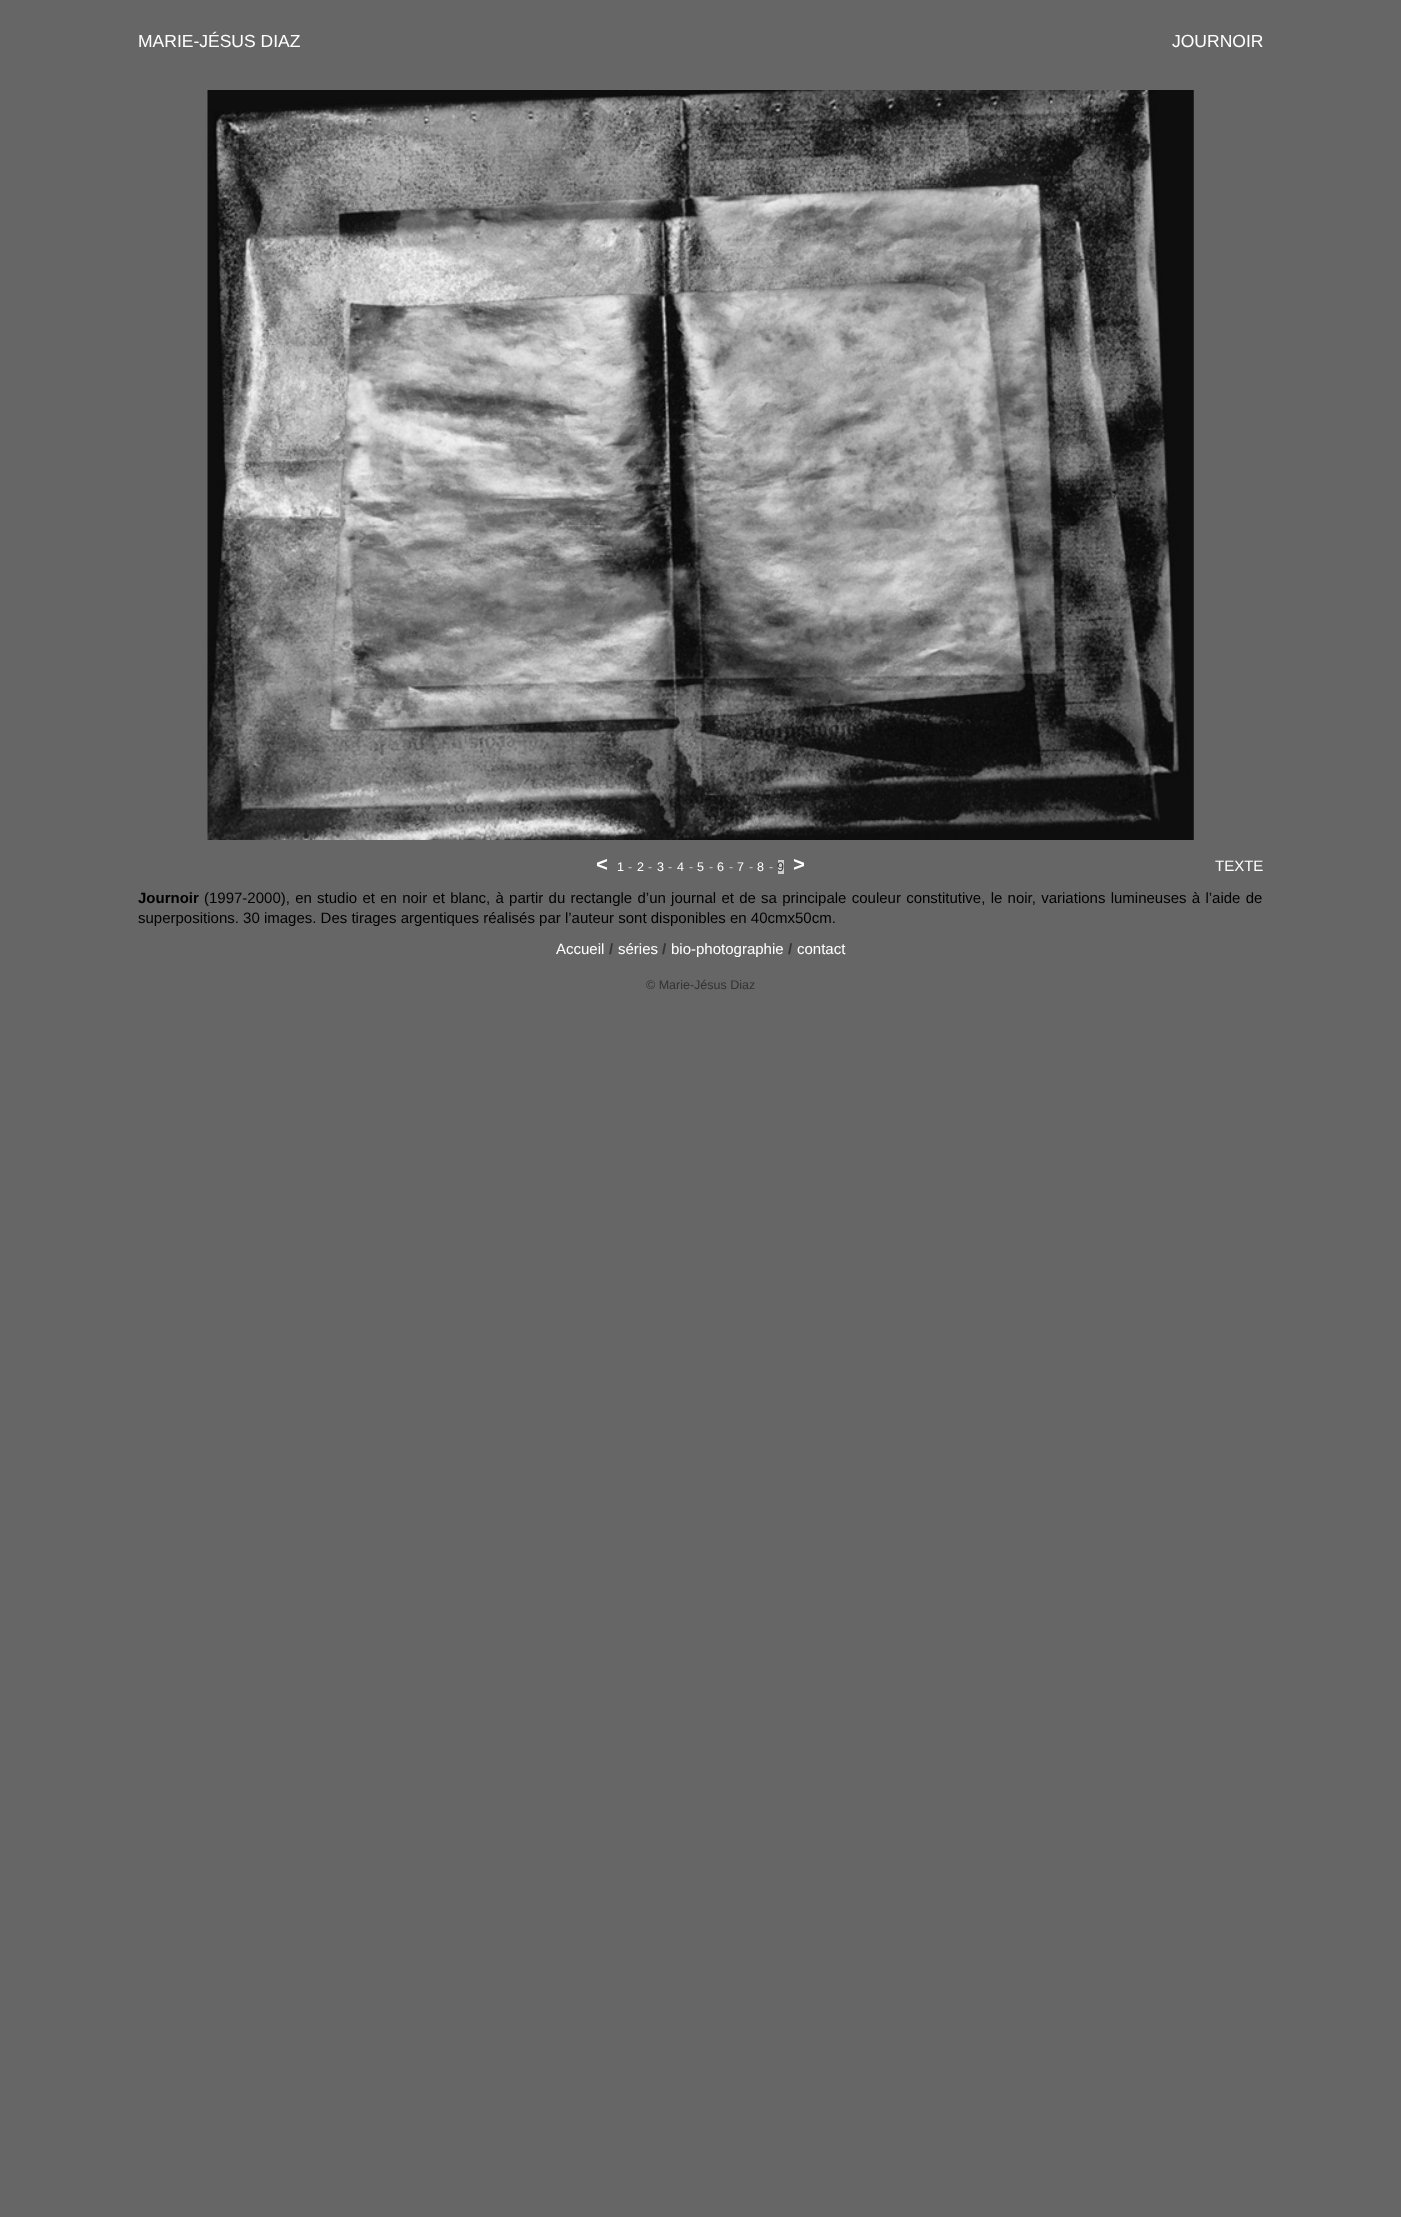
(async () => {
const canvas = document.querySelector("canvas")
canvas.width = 1401
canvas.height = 2217
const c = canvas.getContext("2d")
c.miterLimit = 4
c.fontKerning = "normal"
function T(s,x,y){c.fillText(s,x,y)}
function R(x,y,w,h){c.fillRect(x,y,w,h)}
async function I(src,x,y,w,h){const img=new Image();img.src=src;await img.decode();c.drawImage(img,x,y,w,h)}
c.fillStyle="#666"
R(0,0,1401,2217)
c.font="17.5px Liberation Sans"
c.fillStyle="#fff"
T("MARIE-JÉSUS DIAZ",138,47)
T("JOURNOIR",1172,47)
await I("1.png",207,90,987,750)
c.font="bold 20px Liberation Mono"
T("<",596,871)
c.font="12.5px Liberation Sans"
T("1",617,871)
c.fillStyle="#ccc"
T("-",628,871)
c.fillStyle="#fff"
T("2",637,871)
c.fillStyle="#ccc"
T("-",648,871)
c.fillStyle="#fff"
T("3",657,871)
c.fillStyle="#ccc"
T("-",668,871)
c.fillStyle="#fff"
T("4",677,871)
c.fillStyle="#ccc"
T("-",689,871)
c.fillStyle="#fff"
T("5",697,871)
c.fillStyle="#ccc"
T("-",709,871)
c.fillStyle="#fff"
T("6",717,871)
c.fillStyle="#ccc"
T("-",729,871)
c.fillStyle="#fff"
T("7",737,871)
c.fillStyle="#ccc"
T("-",749,871)
c.fillStyle="#fff"
T("8",757,871)
c.fillStyle="#ccc"
T("-",769,871)
R(778,860,6,14)
c.fillStyle="#333"
T("9",777,871)
c.font="bold 20px Liberation Mono"
c.fillStyle="#fff"
T(">",793,871)
c.font="15px Liberation Sans"
T("TEXTE",1215,871)
c.font="bold 15px Liberation Sans"
c.fillStyle="#000"
T("Journoir",138,903)
c.wordSpacing="1.1px"
c.font="15px Liberation Sans"
T("(1997-2000), en studio et en noir et blanc, à partir du rectangle d’un journal et de sa principale couleur constitutive, le noir, variations lumineuses à l’aide de",204,903)
c.wordSpacing="0px"
T("superpositions. 30 images. Des tirages argentiques réalisés par l’auteur sont disponibles en 40cmx50cm.",138,923)
c.fillStyle="#fff"
T("Accueil",556,954)
c.font="bold 15px Liberation Sans"
c.fillStyle="#333"
T("/",609,954)
c.font="15px Liberation Sans"
c.fillStyle="#fff"
T("séries",618,954)
c.font="bold 15px Liberation Sans"
c.fillStyle="#333"
T("/",662,954)
c.font="15px Liberation Sans"
c.fillStyle="#fff"
T("bio-photographie",671,954)
c.font="bold 15px Liberation Sans"
c.fillStyle="#333"
T("/",788,954)
c.font="15px Liberation Sans"
c.fillStyle="#fff"
T("contact",797,954)
c.font="12.5px Liberation Sans"
c.fillStyle="#333"
T("© Marie-Jésus Diaz",646,989)
})()
